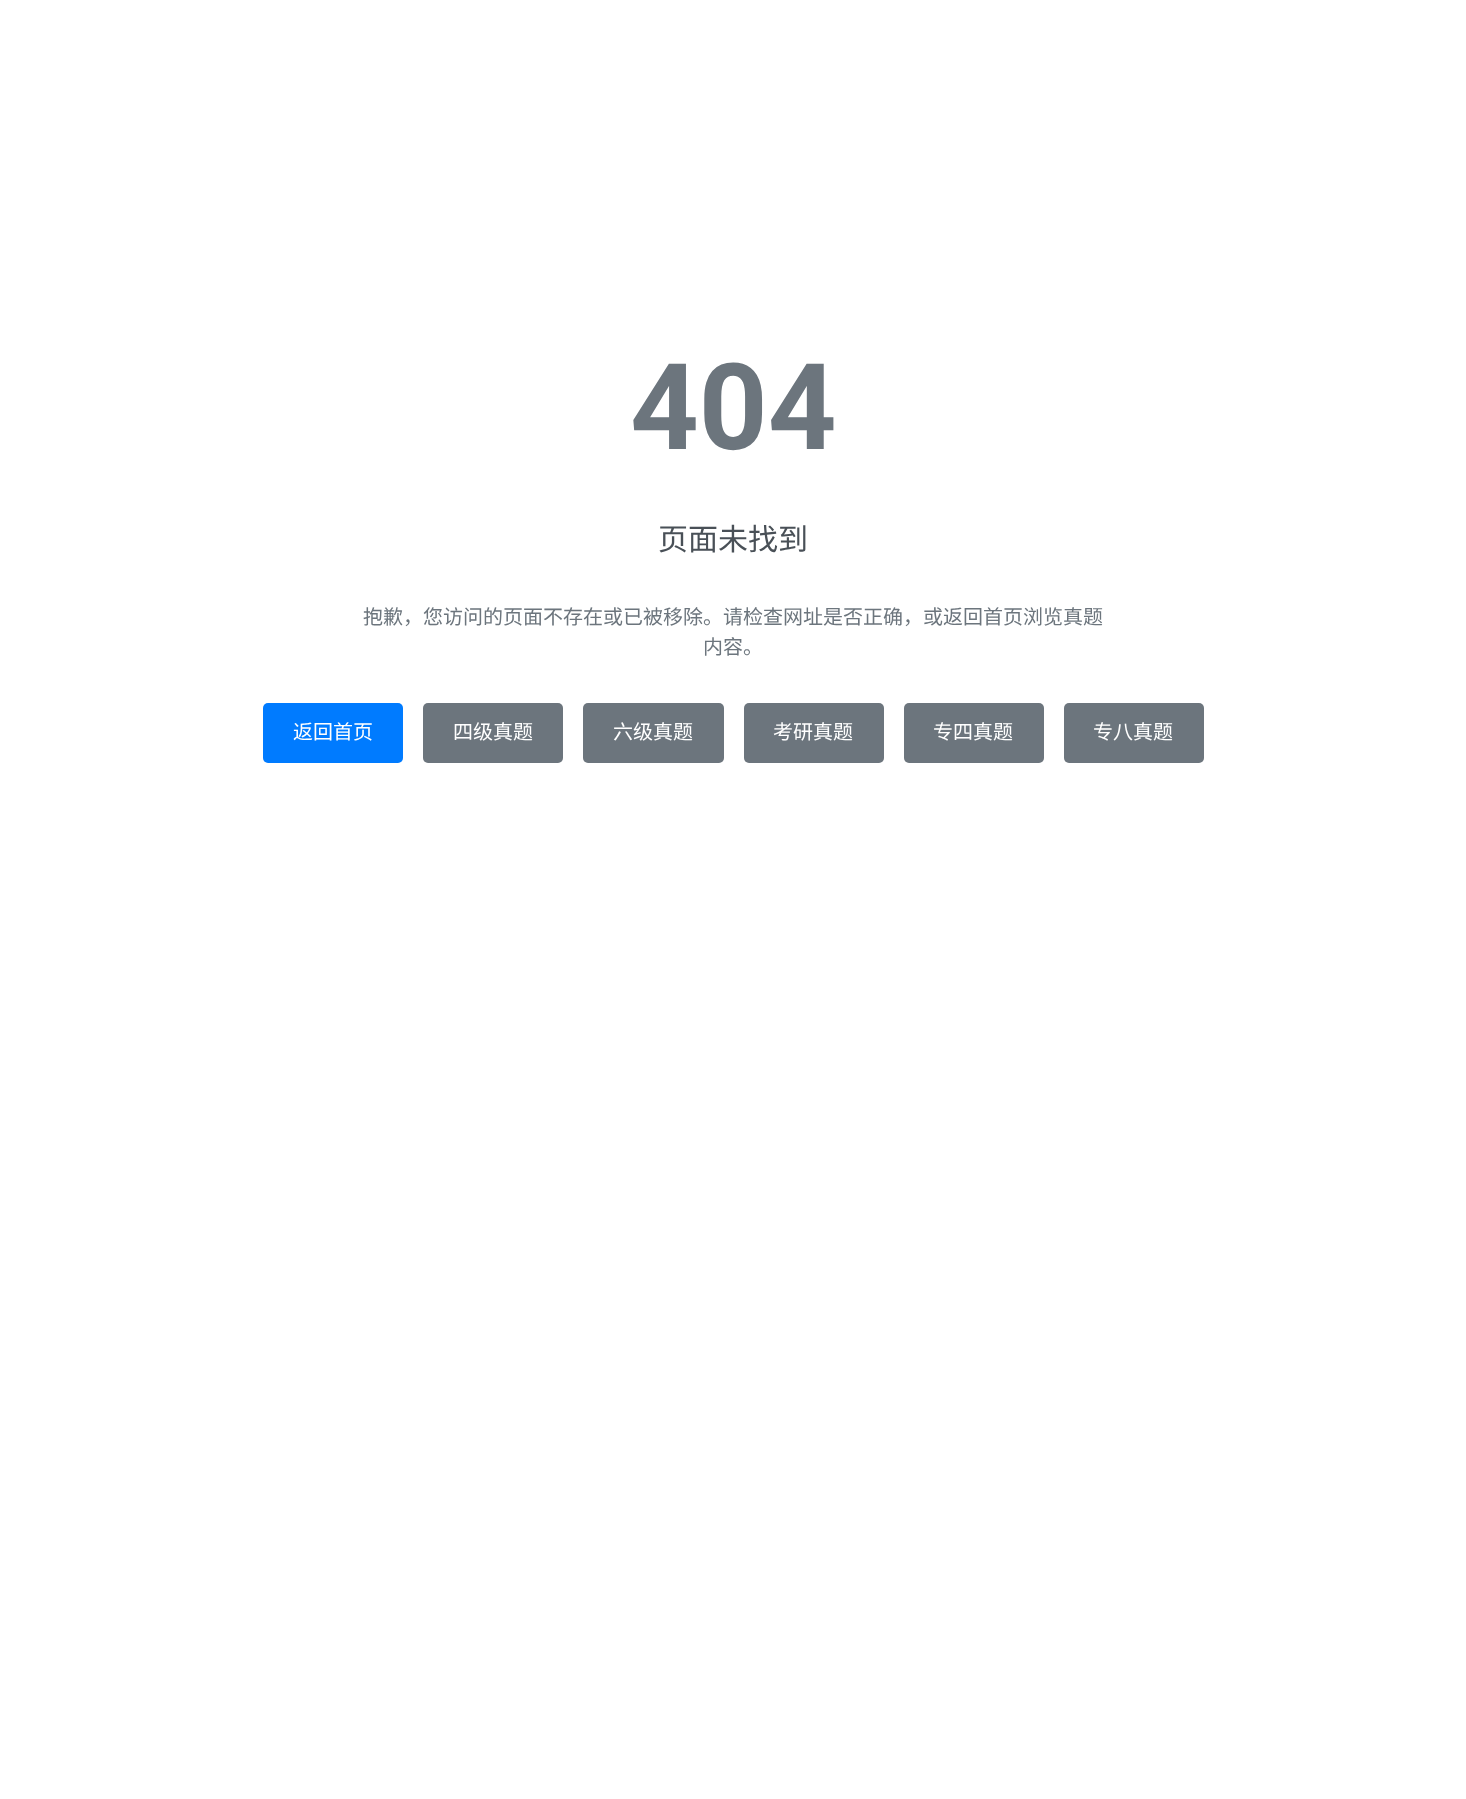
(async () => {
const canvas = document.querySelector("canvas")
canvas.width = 1466
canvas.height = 1799
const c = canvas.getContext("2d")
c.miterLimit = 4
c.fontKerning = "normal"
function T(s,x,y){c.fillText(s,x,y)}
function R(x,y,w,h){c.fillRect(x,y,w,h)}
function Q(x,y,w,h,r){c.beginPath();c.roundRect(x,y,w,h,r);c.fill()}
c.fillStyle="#fff"
R(0,0,1466,1799)
c.font="bold 120px Roboto"
c.fillStyle="#6c757d"
T("404",630,449)
c.font="30px Noto Sans CJK SC"
c.fillStyle="#495057"
T("页面未找到",658,550)
c.font="20px Noto Sans CJK SC"
c.fillStyle="#6c757d"
T("抱歉，您访问的页面不存在或已被移除。请检查网址是否正确，或返回首页浏览真题",363,624)
T("内容。",703,654)
c.fillStyle="#007bff"
Q(263,703,140,60,5)
c.fillStyle="#fff"
T("返回首页",293,739)
c.fillStyle="#6c757d"
Q(423,703,140,60,5)
c.fillStyle="#fff"
T("四级真题",453,739)
c.fillStyle="#6c757d"
Q(583,703,141,60,5)
c.fillStyle="#fff"
T("六级真题",613,739)
c.fillStyle="#6c757d"
Q(744,703,140,60,5)
c.fillStyle="#fff"
T("考研真题",773,739)
c.fillStyle="#6c757d"
Q(904,703,140,60,5)
c.fillStyle="#fff"
T("专四真题",933,739)
c.fillStyle="#6c757d"
Q(1064,703,140,60,5)
c.fillStyle="#fff"
T("专八真题",1093,739)
})()
